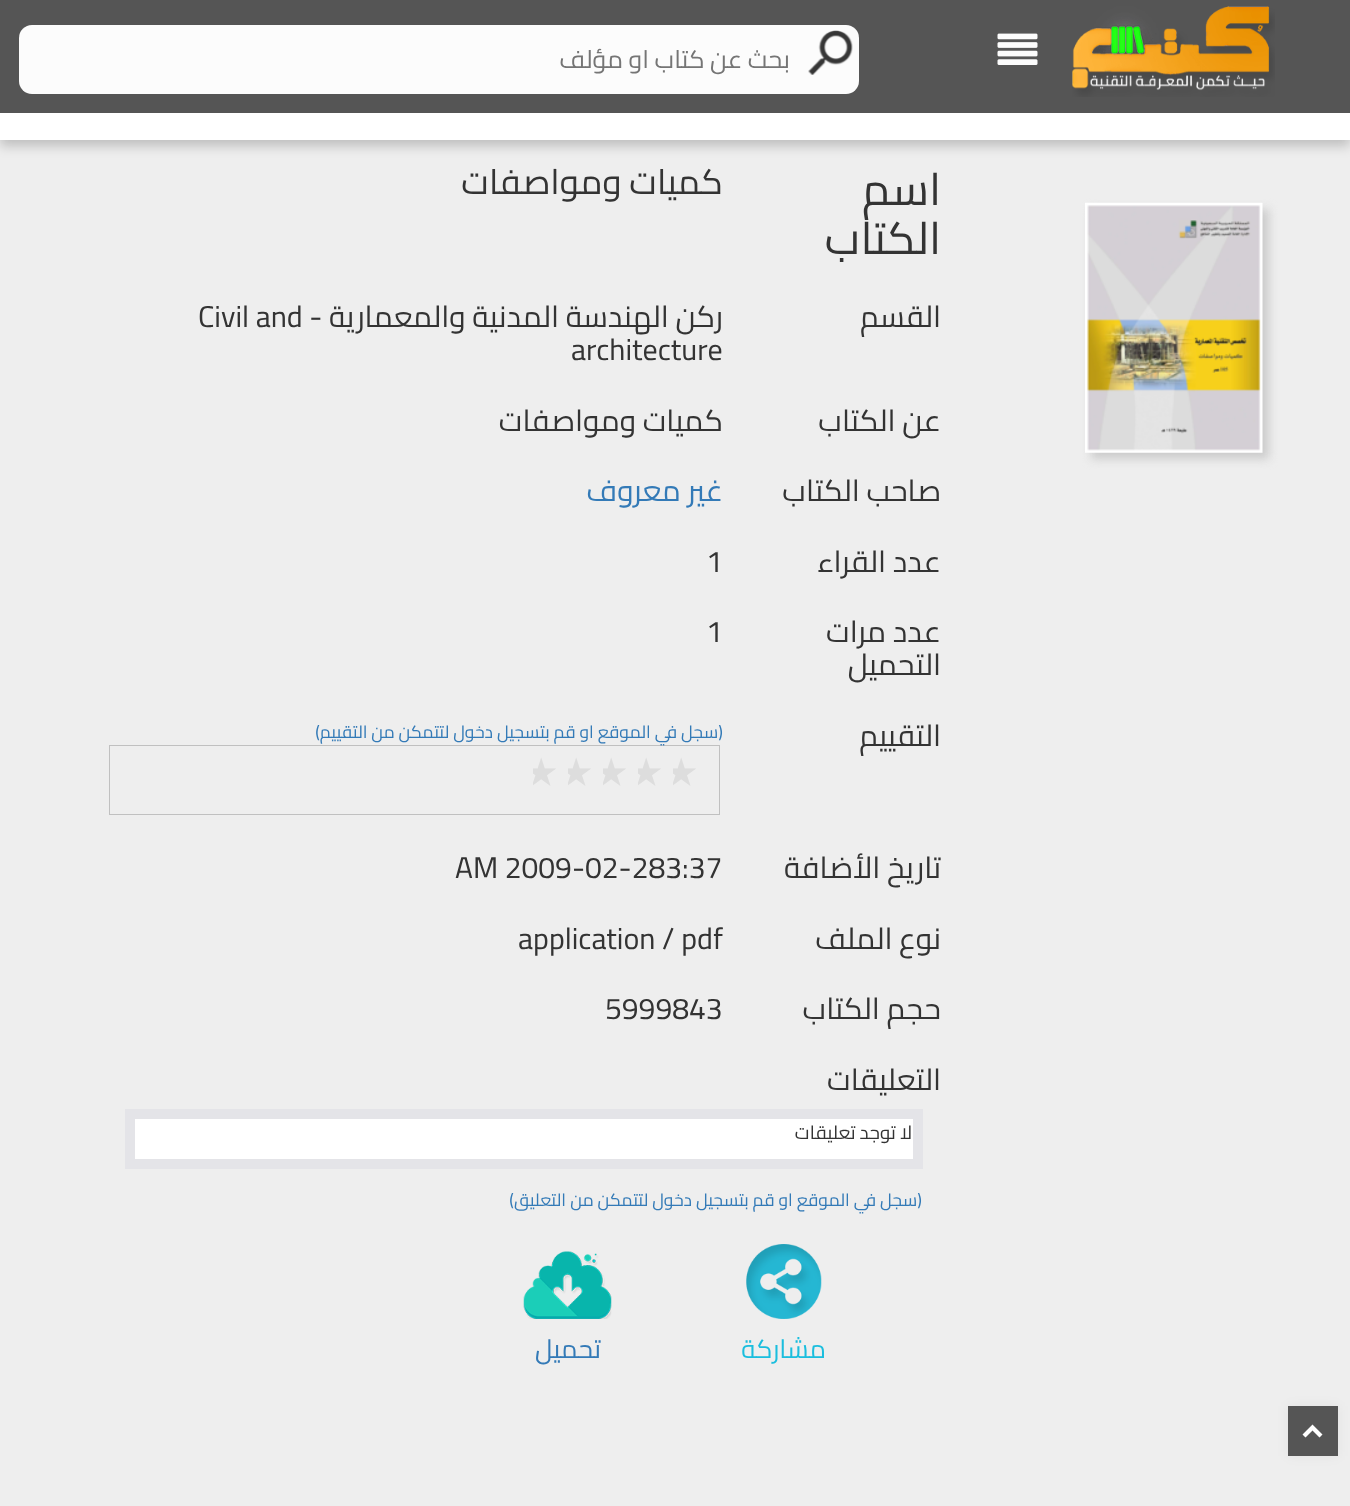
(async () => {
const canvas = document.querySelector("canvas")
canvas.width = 1350
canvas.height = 1506
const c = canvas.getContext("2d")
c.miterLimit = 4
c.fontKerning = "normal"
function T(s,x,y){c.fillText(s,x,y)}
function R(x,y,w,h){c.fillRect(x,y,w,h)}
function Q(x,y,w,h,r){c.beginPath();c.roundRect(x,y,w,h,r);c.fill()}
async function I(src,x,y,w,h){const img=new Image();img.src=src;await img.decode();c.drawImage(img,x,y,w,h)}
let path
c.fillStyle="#eee"
R(0,0,1350,1506)
c.fillStyle="#00000033"
c.filter="blur(6px)"
c.beginPath()
c.rect(0,-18,1350,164)
c.fill()
c.filter="none"
c.fillStyle="#fff"
R(0,113,1350,27)
c.fillStyle="#555"
R(0,0,1350,113)
await I("1.png",1072,6,203,91)
await I("2.png",997,33,41,32)
c.fillStyle="#fcfcfc"
Q(19,25,840,69,13)
await I("3.png",808,30,45,45)
c.direction="rtl"
c.font="25px Cairo"
c.fillStyle="#757575"
T("بحث عن كتاب او مؤلف",790,68)
c.fillStyle="#ccc"
c.filter="blur(5px)"
c.beginPath()
c.rect(1091,209,178,250)
c.fill()
c.filter="none"
await I("4.png",1085,202,178,251)
c.font="45px Cairo"
c.fillStyle="#333"
T("اسم",941,205)
T("الكتاب",941,254)
c.font="35px Cairo"
T("كميات ومواصفات",723,194)
c.font="30px Cairo"
T("القسم",941,327)
T("ركن الهندسة المدنية والمعمارية -",723,327)
c.direction="ltr"
T("Civil and",198,327)
T("architecture",571,360)
c.direction="rtl"
T("عن الكتاب",941,431)
T("كميات ومواصفات",723,431)
T("صاحب الكتاب",941,501)
c.fillStyle="#337ab7"
T("غير معروف",723,501)
c.fillStyle="#333"
T("عدد القراء",941,572)
c.direction="ltr"
T("1",706,572)
c.direction="rtl"
T("عدد مرات",941,642)
T("التحميل",941,675)
c.direction="ltr"
T("1",706,642)
c.direction="rtl"
T("التقييم",941,746)
c.strokeStyle="#c0c0c0"
c.strokeRect(109.5,745.5,610,69)
c.font="17.5px Cairo"
c.fillStyle="#337ab7"
T("(سجل في الموقع او قم بتسجیل دخول لتتمكن من التقییم)",723,738)
c.save()
c.beginPath()
c.rect(673,753,35,41)
c.clip()
c.direction="ltr"
c.font="bold 35px DejaVu Sans"
c.fillStyle="#ddd"
T("★",665,785)
c.restore()
c.save()
c.beginPath()
c.rect(638,753,35,41)
c.clip()
c.direction="ltr"
c.font="bold 35px DejaVu Sans"
c.fillStyle="#ddd"
T("★",630,785)
c.restore()
c.save()
c.beginPath()
c.rect(603,753,35,41)
c.clip()
c.direction="ltr"
c.font="bold 35px DejaVu Sans"
c.fillStyle="#ddd"
T("★",595,785)
c.restore()
c.save()
c.beginPath()
c.rect(568,753,35,41)
c.clip()
c.direction="ltr"
c.font="bold 35px DejaVu Sans"
c.fillStyle="#ddd"
T("★",560,785)
c.restore()
c.save()
c.beginPath()
c.rect(533,753,35,41)
c.clip()
c.direction="ltr"
c.font="bold 35px DejaVu Sans"
c.fillStyle="#ddd"
T("★",525,785)
c.restore()
c.font="30px Cairo"
c.fillStyle="#333"
T("تاريخ الأضافة",941,878)
c.direction="ltr"
T("AM 2009-02-283:37",455,878)
c.direction="rtl"
T("نوع الملف",941,949)
c.direction="ltr"
T("application / pdf",518,949)
c.direction="rtl"
T("حجم الكتاب",941,1019)
c.direction="ltr"
T("5999843",605,1019)
c.direction="rtl"
T("التعليقات",941,1090)
c.fillStyle="#fff"
c.beginPath()
c.rect(130,1114,788,50)
c.fill()
c.strokeStyle="#e4e4e8"
c.lineWidth=10
c.stroke()
c.font="18.75px Cairo"
c.fillStyle="#333"
T("لا توجد تعليقات",912,1139)
c.font="17.5px Cairo"
c.fillStyle="#337ab7"
T("(سجل في الموقع او قم بتسجیل دخول لتتمكن من",922,1206)
T("التعليق)",566,1206)
await I("5.png",746,1244,76,75)
c.font="26px Cairo"
c.fillStyle="#1abede"
T("مشاركة",826,1358)
await I("6.png",523,1251,89,68)
c.fillStyle="#337ab7"
T("تحميل",601,1358)
c.fillStyle="#0000000d"
c.filter="blur(6px)"
c.beginPath()
c.rect(1288,1406,50,50)
c.fill()
c.filter="none"
c.fillStyle="#555"
R(1288,1406,50,50)
c.fillStyle="#fff"
path = new Path2D("M1312.5 1424.5l10 10l-3 3l-7-7l-7 7l-3-3z")
c.fill(path)
})()
